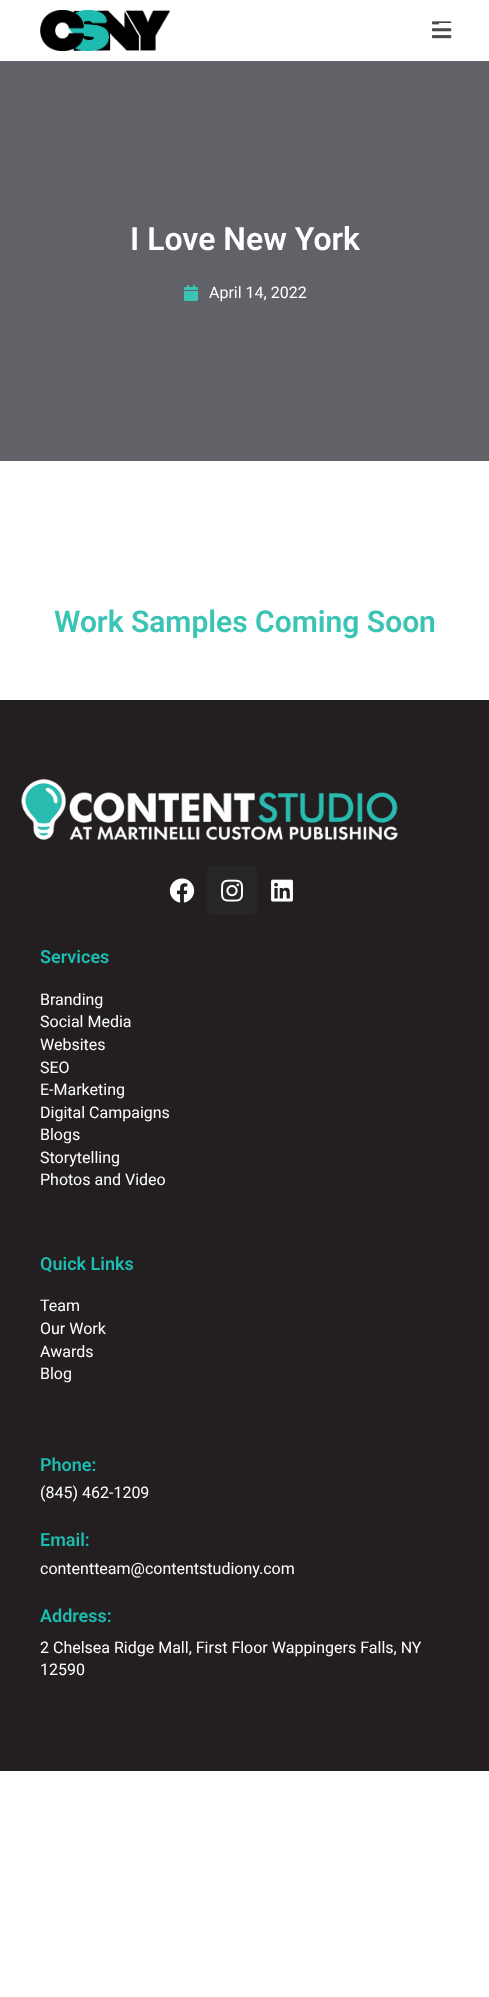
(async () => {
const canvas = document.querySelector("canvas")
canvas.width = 489
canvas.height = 1997
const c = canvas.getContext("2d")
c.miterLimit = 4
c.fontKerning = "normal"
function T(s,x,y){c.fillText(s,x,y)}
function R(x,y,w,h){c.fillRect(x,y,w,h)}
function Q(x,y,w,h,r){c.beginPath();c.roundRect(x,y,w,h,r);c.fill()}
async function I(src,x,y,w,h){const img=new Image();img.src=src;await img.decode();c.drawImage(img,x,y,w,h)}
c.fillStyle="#fff"
R(0,0,489,1997)
await I("2.png",432,21,20,18)
R(439,23,13,2)
await I("1.png",40,10,130,41)
c.fillStyle="#606267"
R(0,61,489,400)
c.font="600 32px Roboto"
c.fillStyle="#fff"
T("I Love New York",130,250)
await I("3.png",184,285,14,16)
c.font="16px Roboto"
T("April 14, 2022",209,298)
c.font="600 30px Roboto"
c.fillStyle="#3bc3b4"
T("Work Samples Coming Soon",54,632)
c.fillStyle="#231f20"
R(0,700,489,1071)
await I("4.png",21,778,377,63)
await I("5.png",169,878,26,25)
c.fillStyle="#262626"
Q(207,865,50,50,5)
await I("6.png",221,879,22,23)
await I("7.png",271,879,22,23)
c.font="600 18px Roboto"
c.fillStyle="#1cbcb0"
T("Services",40,963)
c.font="16px Roboto"
c.fillStyle="#fff"
T("Branding",40,1005)
T("Social Media",40,1027)
T("Websites",40,1050)
T("SEO",40,1073)
T("E-Marketing",40,1095)
T("Digital Campaigns",40,1118)
T("Blogs",40,1140)
T("Storytelling",40,1163)
T("Photos and Video",40,1185)
c.font="600 18px Roboto"
c.fillStyle="#1cbcb0"
T("Quick Links",40,1270)
c.font="16px Roboto"
c.fillStyle="#fff"
T("Team",40,1311)
T("Our Work",40,1334)
T("Awards",40,1357)
T("Blog",40,1379)
c.font="600 18px Roboto"
c.fillStyle="#1cbcb0"
T("Phone:",40,1471)
c.font="16px Roboto"
c.fillStyle="#fff"
T("(845) 462-1209",40,1498)
c.font="600 18px Roboto"
c.fillStyle="#1cbcb0"
T("Email:",40,1546)
c.font="16px Roboto"
c.fillStyle="#fff"
T("contentteam@contentstudiony.com",40,1574)
c.font="600 18px Roboto"
c.fillStyle="#1cbcb0"
T("Address:",40,1622)
c.font="16px Roboto"
c.fillStyle="#fff"
T("2 Chelsea Ridge Mall, First Floor Wappingers Falls, NY",40,1653)
T("12590",40,1675)
})()
